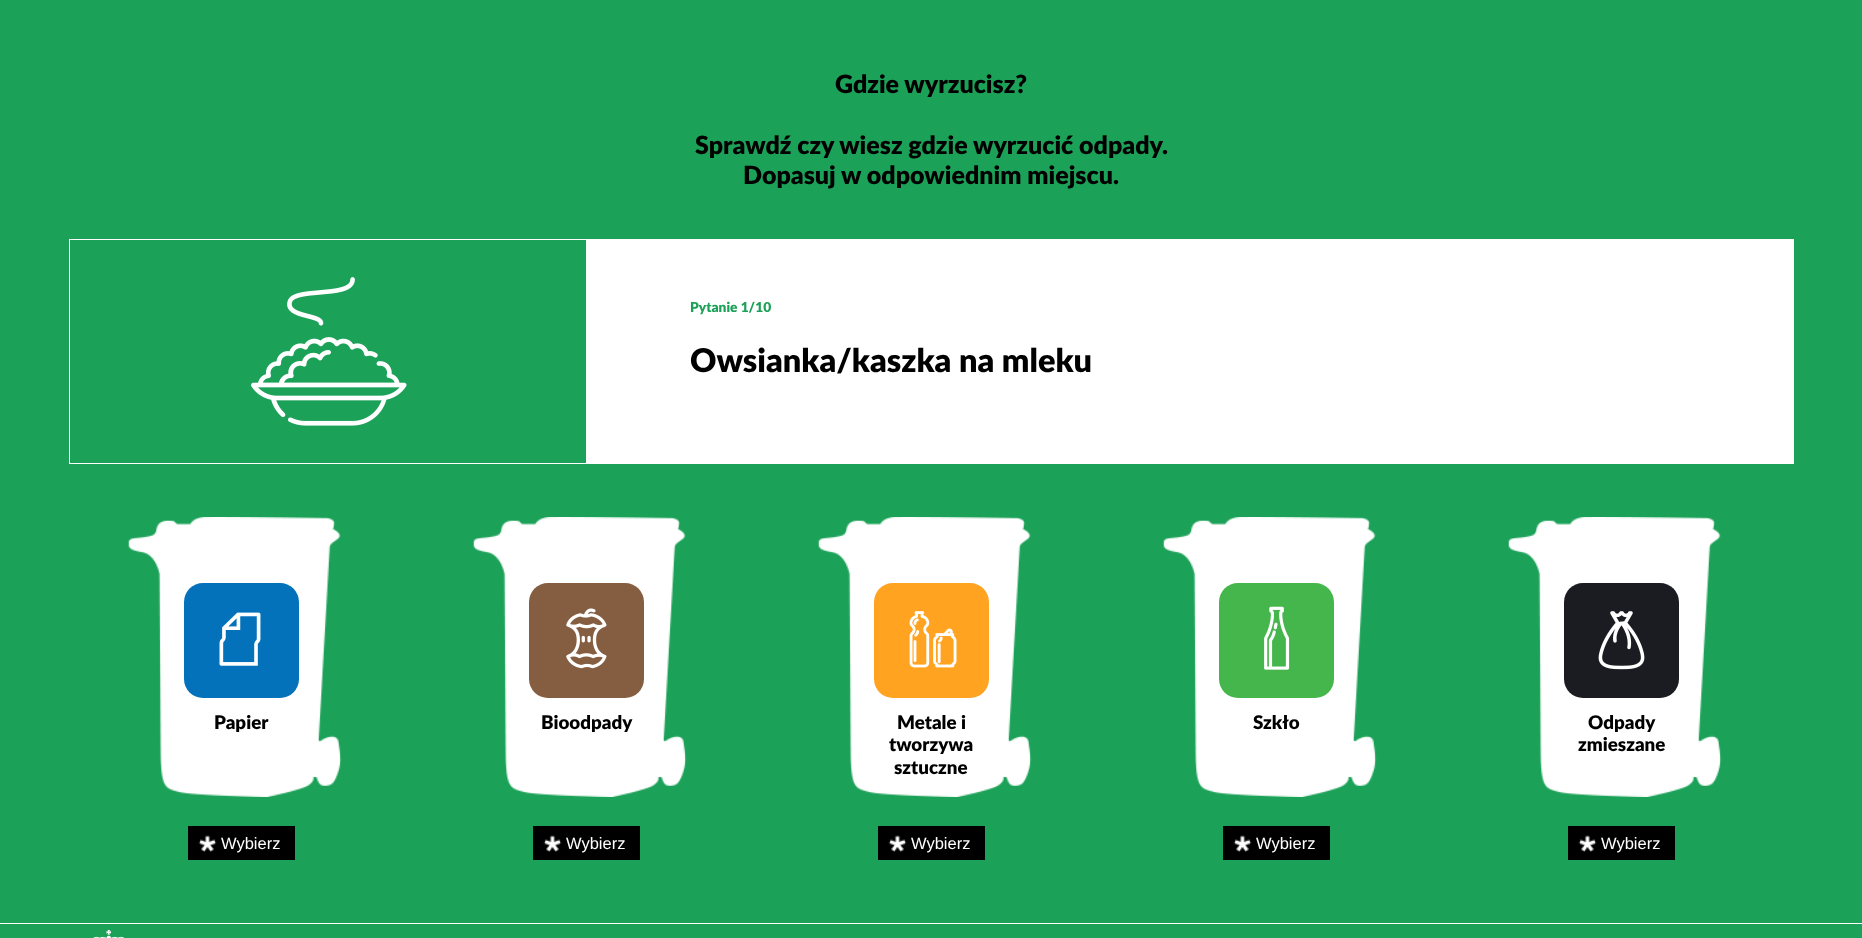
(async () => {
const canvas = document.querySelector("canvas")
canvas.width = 1862
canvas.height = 938
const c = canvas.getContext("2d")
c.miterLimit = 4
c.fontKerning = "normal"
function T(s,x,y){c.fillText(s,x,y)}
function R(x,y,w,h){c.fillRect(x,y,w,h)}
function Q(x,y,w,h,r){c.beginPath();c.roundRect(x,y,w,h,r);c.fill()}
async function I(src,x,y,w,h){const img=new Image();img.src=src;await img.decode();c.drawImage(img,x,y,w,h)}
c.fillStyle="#1ca158"
R(0,0,1862,938)
c.font="900 25px Lato"
c.fillStyle="#000"
T("Gdzie wyrzucisz?",835,93)
T("Sprawdź czy wiesz gdzie wyrzucić odpady.",695,154)
T("Dopasuj w odpowiednim miejscu.",743,184)
c.strokeStyle="#fff"
c.strokeRect(69.5,239.5,1724,224)
await I("1.png",251,277,156,149)
c.fillStyle="#fff"
R(586,240,1207,223)
c.font="900 13.75px Lato"
c.fillStyle="#1ca158"
T("Pytanie 1/10",690,312)
c.font="900 32.5px Lato"
c.fillStyle="#000"
T("Owsianka/kaszka na mleku",690,372)
await I("2.png",128,517,214,280)
c.fillStyle="#0372bb"
Q(184,583,115,115,19)
await I("3.png",219,612,42,54)
c.font="900 18.75px Lato"
c.fillStyle="#000"
T("Papier",214,729)
R(188,826,107,34)
await I("4.png",198,835,19,17)
c.font="16.5px Liberation Sans"
c.fillStyle="#fff"
T("Wybierz",221,849)
await I("5.png",473,517,214,280)
c.fillStyle="#855e41"
Q(529,583,115,115,19)
await I("6.png",566,608,41,61)
c.font="900 18.75px Lato"
c.fillStyle="#000"
T("Bioodpady",541,729)
R(533,826,107,34)
await I("4.png",543,835,19,17)
c.font="16.5px Liberation Sans"
c.fillStyle="#fff"
T("Wybierz",566,849)
await I("7.png",818,517,214,280)
c.fillStyle="#ffa321"
Q(874,583,115,115,19)
await I("8.png",909,611,48,57)
c.font="900 18.75px Lato"
c.fillStyle="#000"
T("Metale i",897,729)
T("tworzywa",889,751)
T("sztuczne",894,774)
R(878,826,107,34)
await I("9.png",888,835,19,17)
c.font="16.5px Liberation Sans"
c.fillStyle="#fff"
T("Wybierz",911,849)
await I("10.png",1163,517,214,280)
c.fillStyle="#45b64b"
Q(1219,583,115,115,19)
await I("11.png",1264,606,26,64)
c.font="900 18.75px Lato"
c.fillStyle="#000"
T("Szkło",1253,729)
R(1223,826,107,34)
await I("4.png",1233,835,19,17)
c.font="16.5px Liberation Sans"
c.fillStyle="#fff"
T("Wybierz",1256,849)
await I("12.png",1508,517,214,280)
c.fillStyle="#1b1c21"
Q(1564,583,115,115,19)
await I("13.png",1598,611,47,59)
c.font="900 18.75px Lato"
c.fillStyle="#000"
T("Odpady",1588,729)
T("zmieszane",1578,751)
R(1568,826,107,34)
await I("4.png",1578,835,19,17)
c.font="16.5px Liberation Sans"
c.fillStyle="#fff"
T("Wybierz",1601,849)
R(0,923,1862,1)
await I("14.png",93,930,32,8)
})()
